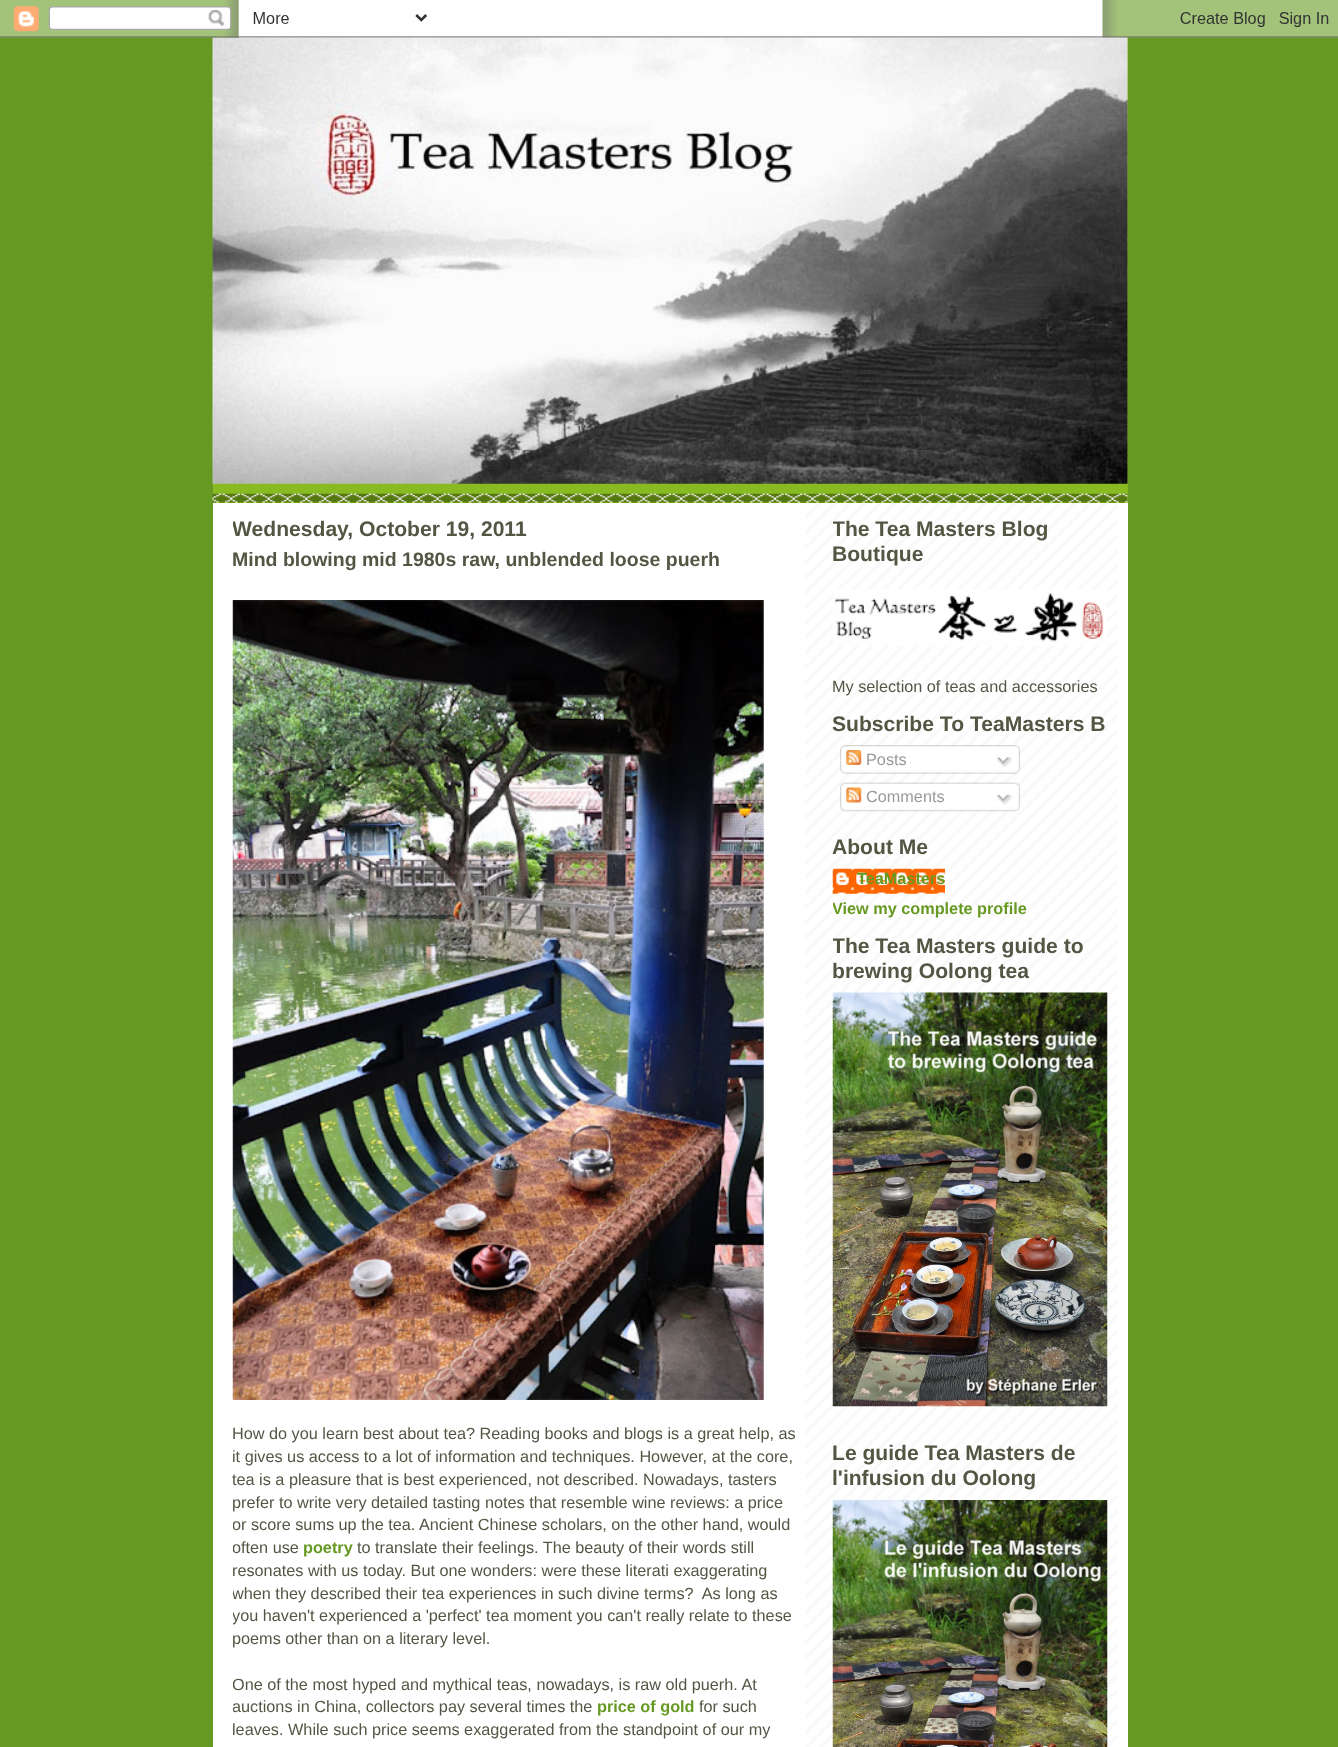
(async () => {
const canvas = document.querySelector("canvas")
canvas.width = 1338
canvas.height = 1747
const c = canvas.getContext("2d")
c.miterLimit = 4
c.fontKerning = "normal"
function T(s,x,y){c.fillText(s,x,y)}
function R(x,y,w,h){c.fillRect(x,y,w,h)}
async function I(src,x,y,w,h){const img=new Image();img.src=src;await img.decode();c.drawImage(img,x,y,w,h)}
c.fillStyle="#692"
R(0,0,1338,1747)
await I("1.png",224,0,893,38)
c.fillStyle="#fff"
R(213,503,915,1244)
await I("3.png",805,37,323,1710)
c.fillStyle="#8b2"
R(213,38,915,465)
await I("5.png",212,37,916,447)
await I("2.png",0,0,1338,38)
await I("4.png",212,492,916,11)
c.save()
c.beginPath()
c.rect(233,503,567,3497)
c.clip()
c.font="bold 21.1px Liberation Sans"
c.fillStyle="#554"
T("Wednesday, October 19, 2011",232,536)
c.restore()
c.font="bold 19.5px Liberation Sans"
c.fillStyle="#554"
T("Mind blowing mid 1980s raw, unblended loose puerh",232,566)
await I("6.png",232,600,532,800)
c.font="16.25px Liberation Sans"
T("How do you learn best about tea? Reading books and blogs is a great help, as",232,1439)
T("it gives us access to a lot of information and techniques. However, at the core,",232,1462)
T("tea is a pleasure that is best experienced, not described. Nowadays, tasters",232,1485)
T("prefer to write very detailed tasting notes that resemble wine reviews: a price",232,1508)
c.save()
c.beginPath()
c.rect(233,503,567,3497)
c.clip()
T("or score sums up the tea. Ancient Chinese scholars, on the other hand, would",232,1530)
T("often use",232,1553)
c.restore()
c.font="bold 16.25px Liberation Sans"
c.fillStyle="#692"
T("poetry",303,1553)
c.font="16.25px Liberation Sans"
c.fillStyle="#554"
T("to translate their feelings. The beauty of their words still",357,1553)
T("resonates with us today. But one wonders: were these literati exaggerating",232,1576)
c.save()
c.beginPath()
c.rect(233,503,567,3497)
c.clip()
T("when they described their tea experiences in such divine terms?  As long as",232,1599)
T("you haven't experienced a 'perfect' tea moment you can't really relate to these",232,1621)
c.restore()
T("poems other than on a literary level.",232,1644)
c.save()
c.beginPath()
c.rect(233,503,567,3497)
c.clip()
T("One of the most hyped and mythical teas, nowadays, is raw old puerh. At",232,1690)
T("auctions in China, collectors pay several times the",232,1712)
c.restore()
c.font="bold 16.25px Liberation Sans"
c.fillStyle="#692"
T("price of gold",597,1712)
c.font="16.25px Liberation Sans"
c.fillStyle="#554"
T("for such",699,1712)
T("leaves. While such price seems exaggerated from the standpoint of our my",232,1735)
c.save()
c.beginPath()
c.rect(833,503,275,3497)
c.clip()
c.font="bold 21.1px Liberation Sans"
T("The Tea Masters Blog",832,536)
c.restore()
c.font="bold 21.1px Liberation Sans"
T("Boutique",832,561)
await I("7.png",833,589,274,57)
c.font="16.25px Liberation Sans"
T("My selection of teas and accessories",832,692)
c.font="bold 21.1px Liberation Sans"
T("Subscribe To TeaMasters B",832,731)
await I("8.png",840,745,180,25)
await I("9.png",846,750,16,15)
c.font="16.25px Liberation Sans"
c.fillStyle="#999"
T("Posts",866,765)
await I("10.png",996,756,17,12)
await I("11.png",840,770,180,4)
await I("12.png",840,782,180,26)
await I("13.png",846,787,16,16)
T("Comments",866,802)
await I("14.png",996,794,17,11)
await I("15.png",840,807,180,5)
c.font="bold 21.1px Liberation Sans"
c.fillStyle="#554"
T("About Me",832,854)
await I("16.png",832,868,113,26)
c.font="bold 16.25px Liberation Sans"
c.fillStyle="#692"
T("TeaMasters",857,884)
c.save()
c.beginPath()
c.rect(833,503,275,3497)
c.clip()
T("View my complete profile",832,914)
c.font="bold 21.1px Liberation Sans"
c.fillStyle="#554"
T("The Tea Masters guide to",832,953)
c.restore()
c.font="bold 21.1px Liberation Sans"
c.fillStyle="#554"
T("brewing Oolong tea",832,978)
await I("17.png",832,992,276,415)
T("Le guide Tea Masters de",832,1460)
T("l'infusion du Oolong",832,1485)
await I("18.png",832,1500,276,247)
})()
